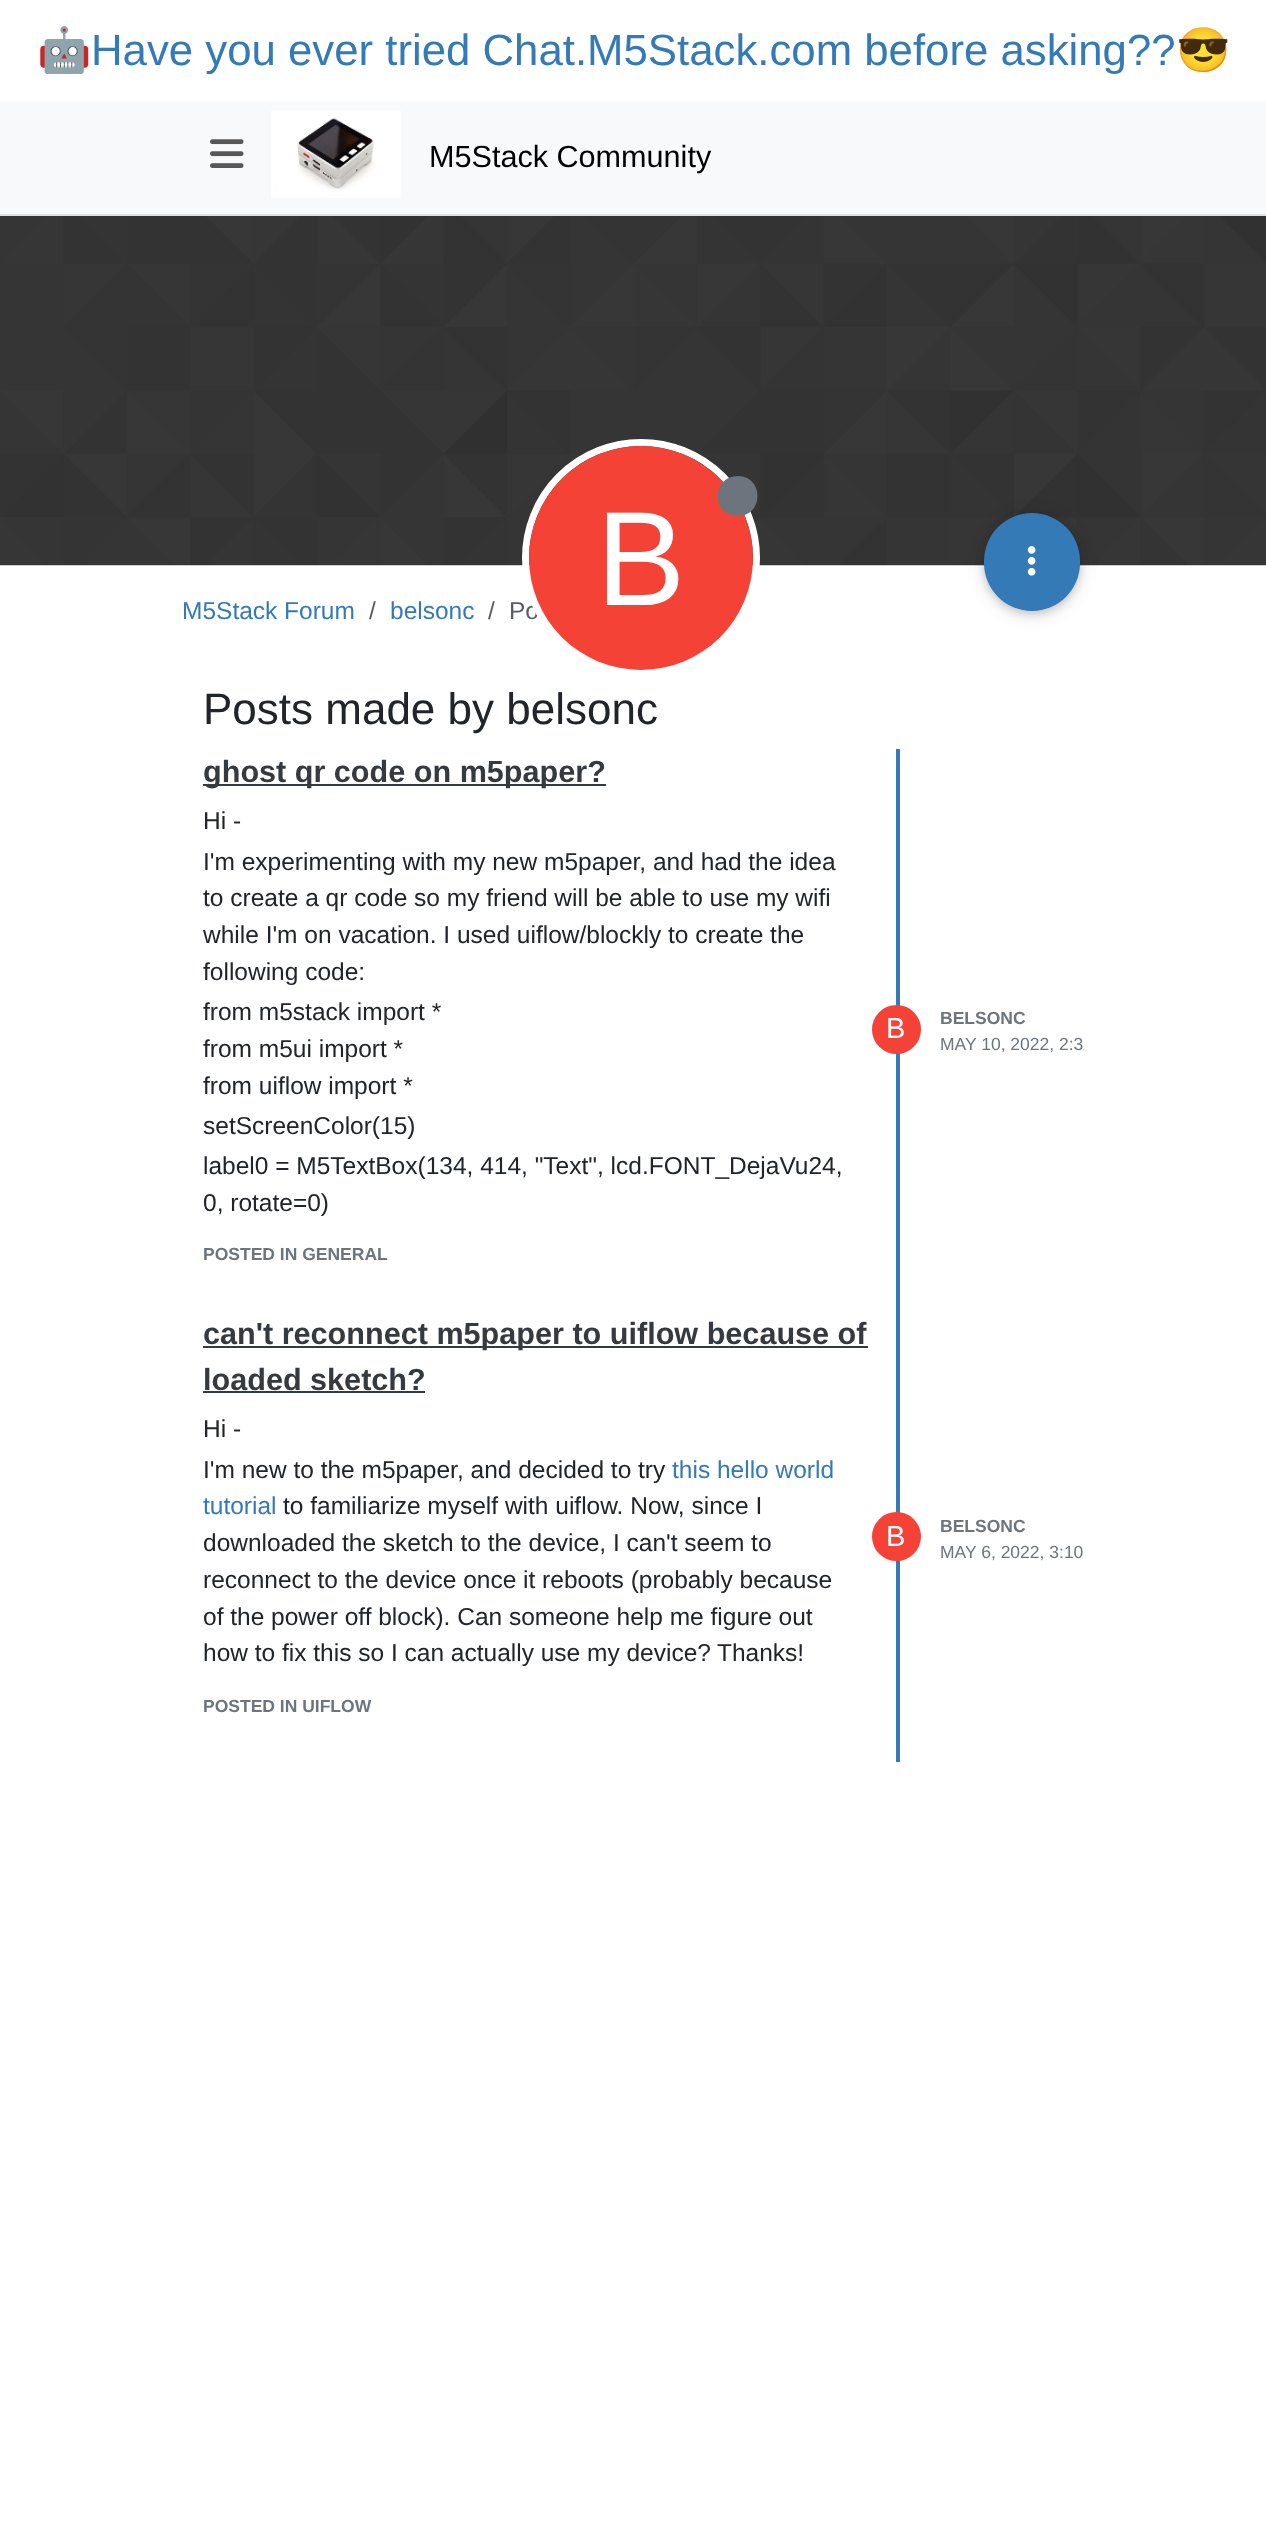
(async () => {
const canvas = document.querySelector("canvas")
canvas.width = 1266
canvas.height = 2523
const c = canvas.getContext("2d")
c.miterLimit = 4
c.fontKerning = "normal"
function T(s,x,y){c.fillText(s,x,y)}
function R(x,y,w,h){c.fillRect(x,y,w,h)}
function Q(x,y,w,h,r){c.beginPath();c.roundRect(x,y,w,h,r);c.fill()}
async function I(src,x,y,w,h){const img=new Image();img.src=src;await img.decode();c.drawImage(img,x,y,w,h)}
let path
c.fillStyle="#fff"
R(0,0,1266,2523)
c.font="43.75px Noto Color Emoji"
c.fillStyle="#337ab7"
T("🤖",37,65)
c.font="43.75px Liberation Sans"
T("Have you ever tried Chat.M5Stack.com before asking??",91,65)
c.font="43.75px Noto Color Emoji"
T("😎",1176,65)
c.fillStyle="#f8f9fa"
R(0,102,1266,112)
c.fillStyle="#dee2e6"
R(0,214,1266,2)
await I("1.png",210,139,34,29)
await I("2.png",271,110,130,88)
c.font="30.6px Liberation Sans"
c.fillStyle="#000"
T("M5Stack Community",429,167)
await I("3.png",0,216,1266,350)
c.font="24.5px Liberation Sans"
c.fillStyle="#595c5f"
T("Po",509,619)
c.beginPath()
c.arc(641,558,115.5,0,7)
c.strokeStyle="#fff"
c.lineWidth=7
c.stroke()
c.fillStyle="#f44336"
c.beginPath()
c.arc(641,558,112,0,7)
c.fill()
c.fillStyle="#6c757d"
path = new Path2D("M738 516c26 0 26-40 0-40c-27 0-27 40 0 40z")
c.fill(path)
c.font="134px Liberation Sans"
c.fillStyle="#fff"
T("B",596,605)
c.fillStyle="#0000001f"
c.filter="blur(9px)"
c.beginPath()
c.roundRect(984,516,96,98,48)
c.fill()
c.filter="none"
c.fillStyle="#00000029"
c.filter="blur(4.5px)"
c.beginPath()
c.roundRect(984,516,96,98,48)
c.fill()
c.filter="none"
c.fillStyle="#337ab7"
Q(984,513,96,98,48)
await I("4.png",1027,546,9,30)
c.font="24.5px Liberation Sans"
T("M5Stack Forum",182,619)
c.fillStyle="#595c5f"
T("/",369,619)
c.fillStyle="#337ab7"
T("belsonc",390,619)
c.fillStyle="#595c5f"
T("/",488,619)
c.font="44px Liberation Sans"
c.fillStyle="#212529"
T("Posts made by belsonc",203,724)
c.fillStyle="#337ab7"
R(896,749,4,1013)
c.fillStyle="#343a40"
R(203,784,403,2)
c.font="bold 30.6px Liberation Sans"
T("ghost qr code on m5paper?",203,782)
c.font="24.5px Liberation Sans"
c.fillStyle="#212529"
T("Hi -",203,829)
T("I'm experimenting with my new m5paper, and had the idea",203,870)
T("to create a qr code so my friend will be able to use my wifi",203,906)
T("while I'm on vacation. I used uiflow/blockly to create the",203,943)
T("following code:",203,980)
T("from m5stack import *",203,1020)
T("from m5ui import *",203,1057)
T("from uiflow import *",203,1094)
T("setScreenColor(15)",203,1134)
T("label0 = M5TextBox(134, 414, \"Text\", lcd.FONT_DejaVu24,",203,1174)
T("0, rotate=0)",203,1211)
c.fillStyle="#f44336"
c.beginPath()
c.arc(896.5,1029.5,24.5,0,7)
c.fill()
c.font="29px Liberation Sans"
c.fillStyle="#fff"
T("B",886,1038)
c.font="bold 17.5px Liberation Sans"
c.fillStyle="#6c757d"
T("BELSONC",940,1024)
c.font="17.5px Liberation Sans"
T("MAY 10, 2022, 2:3",940,1050)
c.font="bold 17.5px Liberation Sans"
T("POSTED IN GENERAL",203,1260)
c.fillStyle="#343a40"
R(203,1346,665,2)
c.font="bold 30.6px Liberation Sans"
T("can't reconnect m5paper to uiflow because of",203,1344)
T("loaded sketch?",203,1390)
R(203,1391,222,2)
c.font="24.5px Liberation Sans"
c.fillStyle="#212529"
T("Hi -",203,1437)
T("I'm new to the m5paper, and decided to try",203,1478)
c.fillStyle="#337ab7"
T("this hello world",672,1478)
T("tutorial",203,1514)
c.fillStyle="#212529"
T("to familiarize myself with uiflow. Now, since I",283,1514)
T("downloaded the sketch to the device, I can't seem to",203,1551)
T("reconnect to the device once it reboots (probably because",203,1588)
T("of the power off block). Can someone help me figure out",203,1625)
T("how to fix this so I can actually use my device?",203,1661)
T("Thanks!",717,1661)
c.fillStyle="#f44336"
c.beginPath()
c.arc(896.5,1536.5,24.5,0,7)
c.fill()
c.font="29px Liberation Sans"
c.fillStyle="#fff"
T("B",886,1546)
c.font="bold 17.5px Liberation Sans"
c.fillStyle="#6c757d"
T("BELSONC",940,1532)
c.font="17.5px Liberation Sans"
T("MAY 6, 2022, 3:10",940,1558)
c.font="bold 17.5px Liberation Sans"
T("POSTED IN UIFLOW",203,1712)
})()
